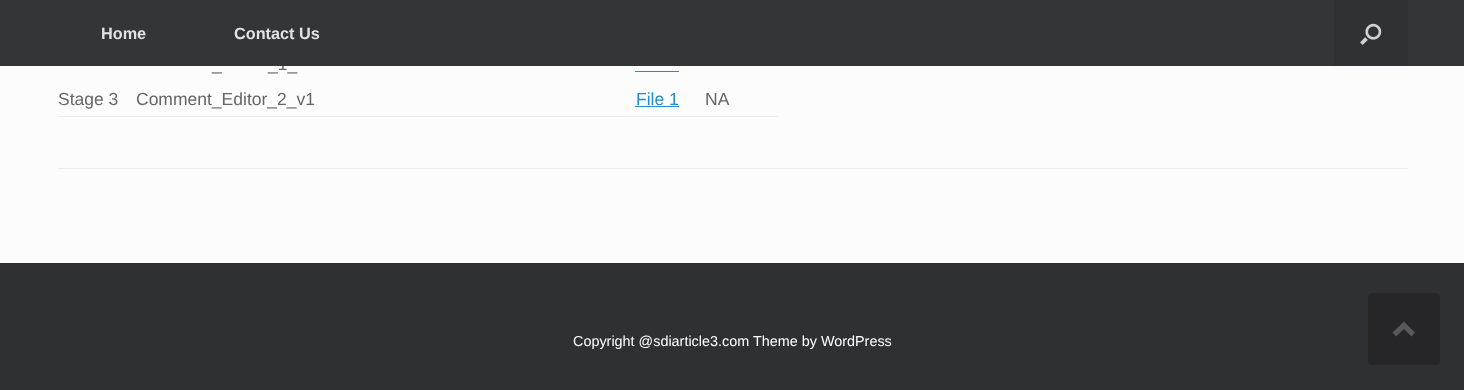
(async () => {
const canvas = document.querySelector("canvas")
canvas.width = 1464
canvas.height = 390
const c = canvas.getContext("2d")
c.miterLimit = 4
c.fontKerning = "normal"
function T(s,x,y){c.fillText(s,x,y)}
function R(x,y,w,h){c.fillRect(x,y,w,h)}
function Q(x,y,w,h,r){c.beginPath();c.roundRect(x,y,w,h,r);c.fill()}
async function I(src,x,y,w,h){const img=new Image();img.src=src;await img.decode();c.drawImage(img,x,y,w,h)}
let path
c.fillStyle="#2f3033"
R(0,0,1464,390)
c.fillStyle="#fcfcfc"
R(0,66,1464,197)
c.font="17.5px Liberation Sans"
c.fillStyle="#666"
T("_1_",268,70)
c.fillStyle="#343538"
R(0,0,1464,66)
c.font="bold 16.25px Liberation Sans"
c.fillStyle="#e2e2e2"
T("Home",101,39)
T("Contact Us",234,39)
c.fillStyle="#303134"
R(1334,0,74,66)
await I("1.png",1360,23,22,22)
c.fillStyle="#eee"
R(58,168,1350,1)
c.fillStyle="#ededed"
R(58,116,720,1)
c.font="17.5px Liberation Sans"
c.fillStyle="#666"
T("_",212,70)
c.fillStyle="#248cc8"
R(635,71,44,1)
c.fillStyle="#666"
T("Stage 3",58,105)
T("Comment_Editor_2_v1",136,105)
c.fillStyle="#248cc8"
T("File 1",636,105)
R(635,106,44,1)
c.fillStyle="#666"
T("NA",705,105)
c.font="14.4px Liberation Sans"
c.fillStyle="#fff"
T("Copyright @sdiarticle3.com Theme by WordPress",573,346)
c.fillStyle="#262629"
Q(1368,293,72,72,4)
c.fillStyle="#59595c"
path = new Path2D("M1415 332.5l-11-11l-11.5 11l3.5 4l8-7.5l7.5 7.5z")
c.fill(path)
})()
